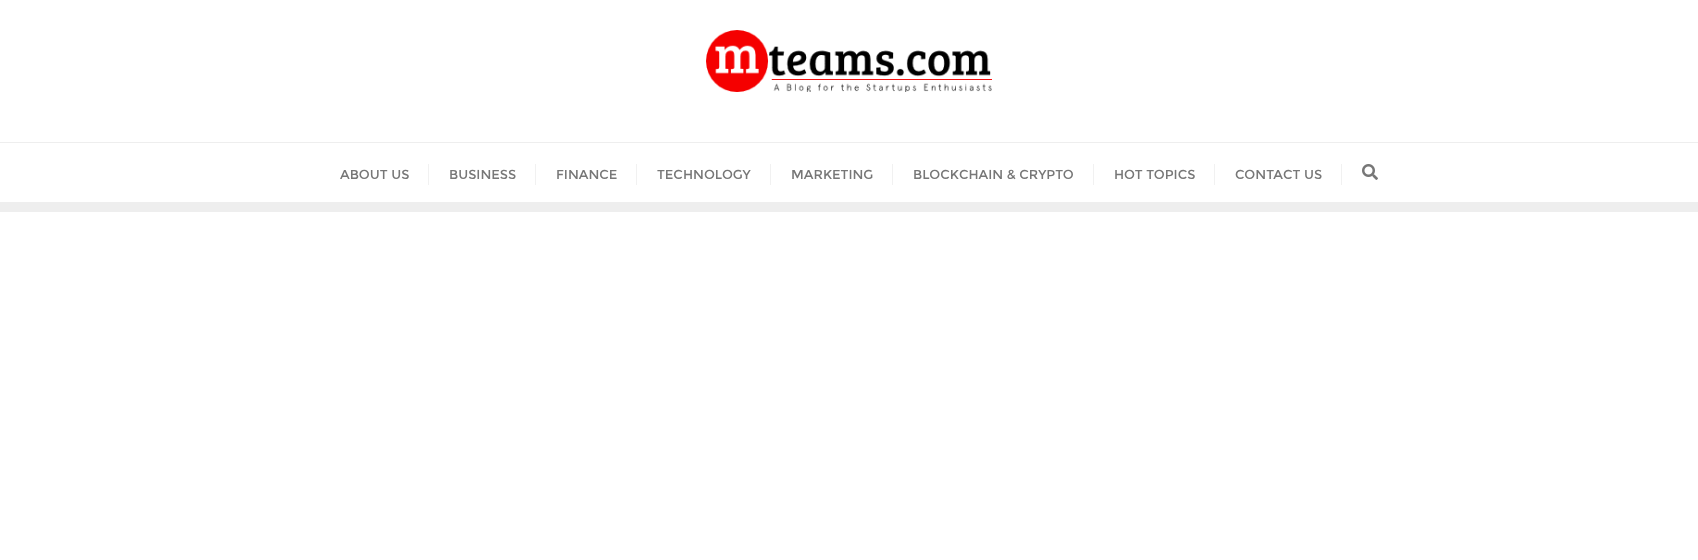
(async () => {
const canvas = document.querySelector("canvas")
canvas.width = 1698
canvas.height = 560
const c = canvas.getContext("2d")
c.miterLimit = 4
c.fontKerning = "normal"
function T(s,x,y){c.fillText(s,x,y)}
function R(x,y,w,h){c.fillRect(x,y,w,h)}
async function I(src,x,y,w,h){const img=new Image();img.src=src;await img.decode();c.drawImage(img,x,y,w,h)}
c.fillStyle="#fff"
R(0,0,1698,560)
c.fillStyle="#eee"
R(0,202,1698,10)
R(0,142,1698,1)
await I("1.png",706,30,286,62)
c.font="13px Montserrat"
c.fillStyle="#777"
T("ABOUT US",340,179)
c.fillStyle="#f1f1f1"
R(428,164,1,21)
c.fillStyle="#777"
T("BUSINESS",449,179)
c.fillStyle="#f1f1f1"
R(535,164,1,21)
c.fillStyle="#777"
T("FINANCE",556,179)
c.fillStyle="#f1f1f1"
R(636,164,1,21)
c.fillStyle="#777"
T("TECHNOLOGY",657,179)
c.fillStyle="#f1f1f1"
R(770,164,1,21)
c.fillStyle="#777"
T("MARKETING",791,179)
c.fillStyle="#f1f1f1"
R(892,164,1,21)
c.fillStyle="#777"
T("BLOCKCHAIN & CRYPTO",913,179)
c.fillStyle="#f1f1f1"
R(1093,164,1,21)
c.fillStyle="#777"
T("HOT TOPICS",1114,179)
c.fillStyle="#f1f1f1"
R(1214,164,1,21)
c.fillStyle="#777"
T("CONTACT US",1235,179)
c.fillStyle="#f1f1f1"
R(1341,164,1,21)
await I("2.png",1362,164,16,16)
})()
